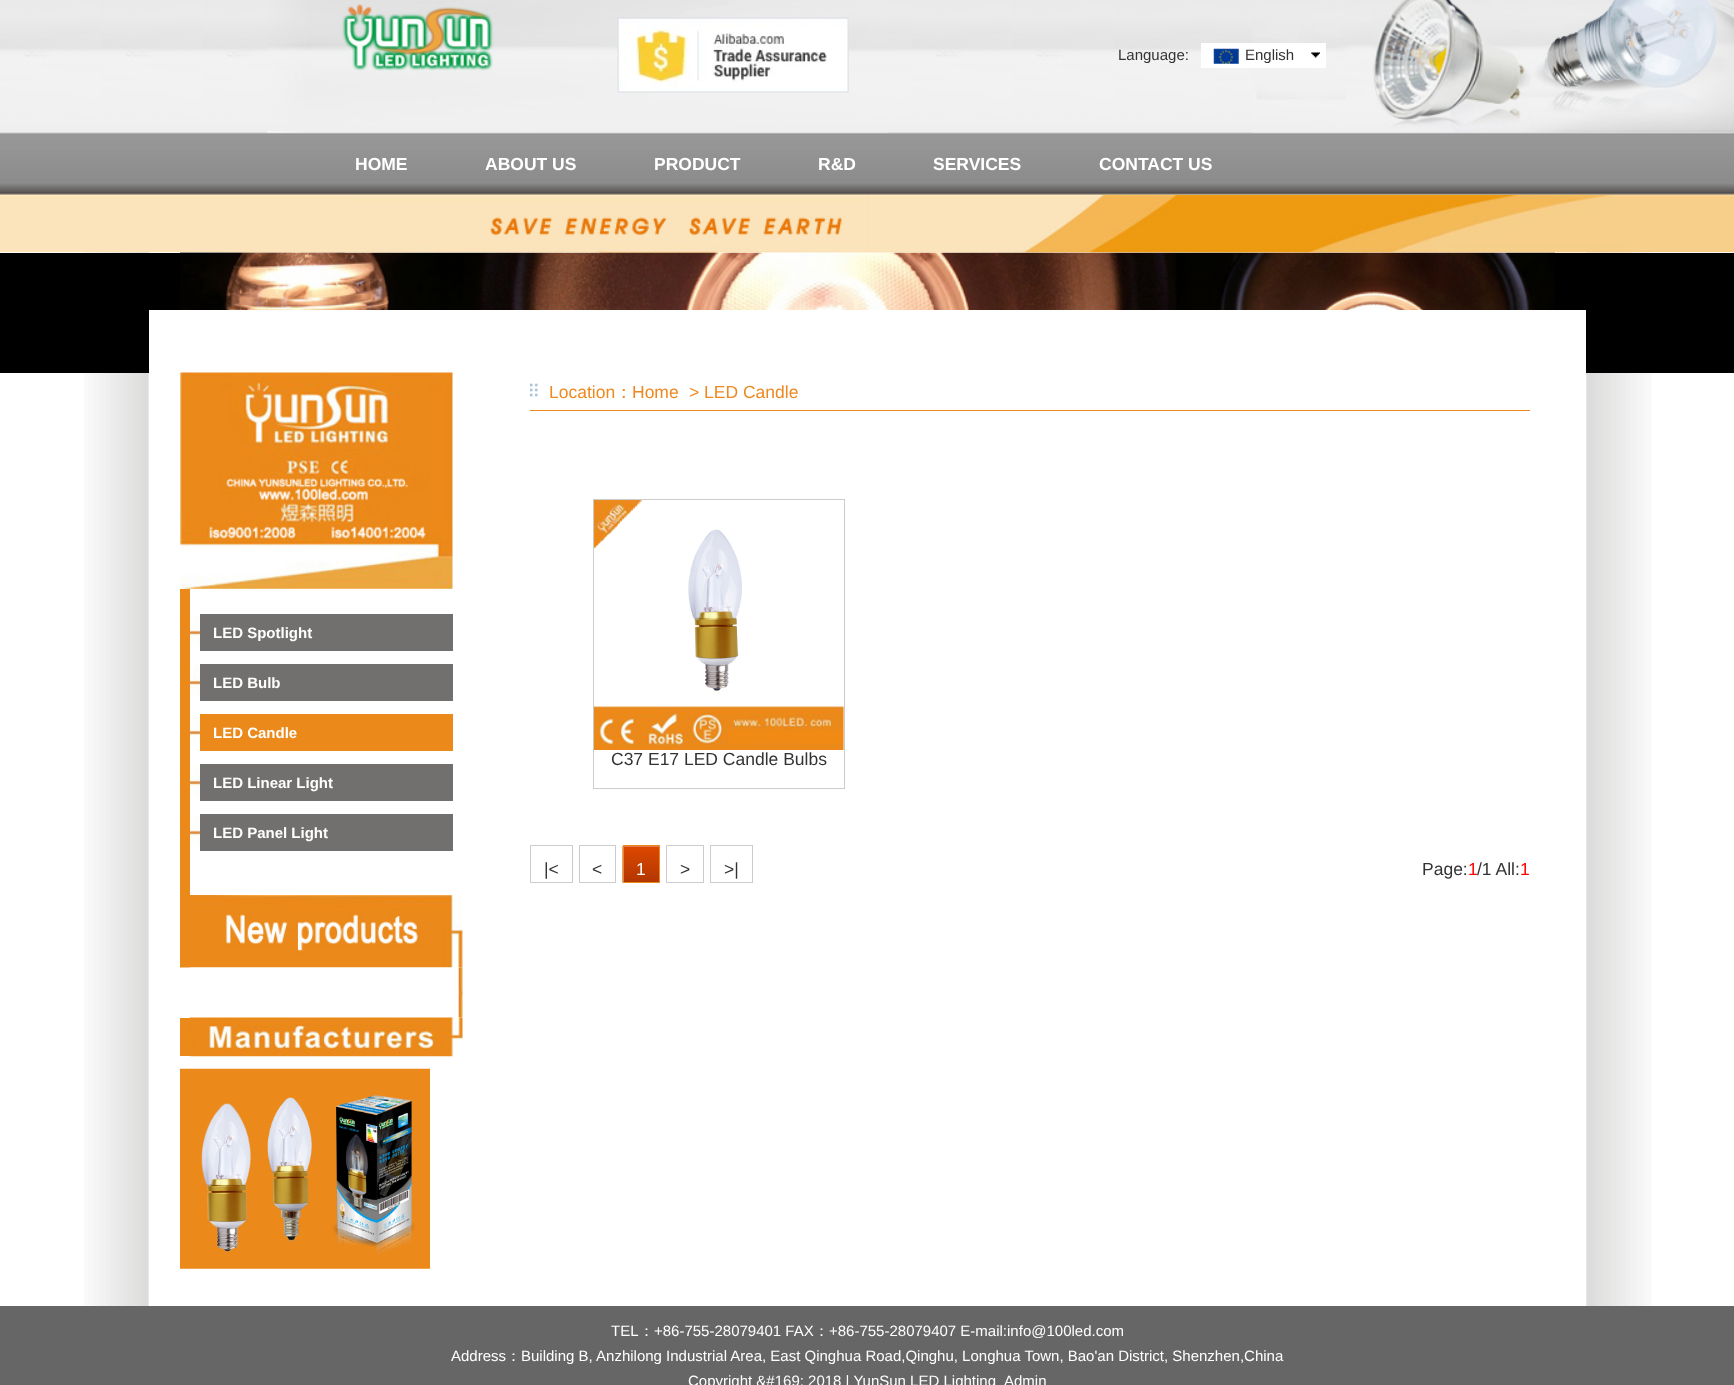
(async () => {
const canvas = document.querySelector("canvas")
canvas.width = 1734
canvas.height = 1385
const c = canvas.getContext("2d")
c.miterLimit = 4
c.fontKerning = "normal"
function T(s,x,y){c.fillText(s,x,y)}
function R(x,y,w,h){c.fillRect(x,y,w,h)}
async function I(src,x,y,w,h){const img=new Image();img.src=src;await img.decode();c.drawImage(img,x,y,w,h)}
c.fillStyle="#fff"
R(0,0,1734,1385)
await I("1.png",84,195,1568,1111)
await I("2.png",0,0,1734,195)
await I("3.png",267,0,621,133)
await I("4.png",617,17,232,76)
c.font="15px Liberation Sans"
c.fillStyle="#333"
T("Language:",1118,60)
await I("7.png",1252,0,482,133)
c.fillStyle="#fff"
R(1201,43,125,25)
await I("5.png",1311,52,9,6)
await I("6.png",1213,48,26,16)
c.fillStyle="#333"
T("English",1245,60)
c.font="bold 17.5px Liberation Sans"
c.fillStyle="#fff"
T("HOME",355,170)
T("ABOUT US",485,170)
T("PRODUCT",654,170)
T("R&D",818,170)
T("SERVICES",933,170)
T("CONTACT US",1099,170)
c.fillStyle="#000"
R(0,253,1734,120)
await I("12.png",180,252,1375,58)
await I("8.png",0,195,868,58)
await I("9.png",345,195,523,58)
await I("10.png",867,195,867,58)
await I("11.png",867,195,765,58)
c.fillStyle="#fff"
R(149,310,1437,63)
await I("13.png",180,372,273,217)
c.fillStyle="#eb891a"
R(180,589,10,379)
await I("14.png",190,615,10,31)
c.fillStyle="#71706e"
R(200,614,253,37)
c.font="bold 15px Liberation Sans"
c.fillStyle="#fff"
T("LED Spotlight",213,638)
await I("14.png",190,665,10,31)
c.fillStyle="#71706e"
R(200,664,253,37)
c.fillStyle="#fff"
T("LED Bulb",213,688)
await I("14.png",190,715,10,31)
c.fillStyle="#eb891a"
R(200,714,253,37)
c.fillStyle="#fff"
T("LED Candle",213,738)
await I("14.png",190,765,10,31)
c.fillStyle="#71706e"
R(200,764,253,37)
c.fillStyle="#fff"
T("LED Linear Light",213,788)
await I("14.png",190,815,10,31)
c.fillStyle="#71706e"
R(200,814,253,37)
c.fillStyle="#fff"
T("LED Panel Light",213,838)
await I("15.png",190,895,273,73)
await I("16.png",180,967,283,51)
c.fillStyle="#eb891a"
R(180,1018,10,38)
await I("17.png",190,1017,273,40)
await I("18.png",180,1068,250,201)
await I("19.png",530,383,8,14)
c.fillStyle="#ee891f"
R(530,410,1000,1)
c.font="17.5px Liberation Sans"
T("Location",549,398)
c.font="500 17.5px WenQuanYi Zen Hei"
T("：",615,398)
c.font="17.5px Liberation Sans"
T("Home",632,398)
T("> LED Candle",689,398)
c.strokeStyle="#ccc"
c.strokeRect(593.5,499.5,251,289)
await I("21.png",688,529,54,162)
await I("20.png",593,500,251,250)
c.fillStyle="#333"
T("C37 E17 LED Candle Bulbs",611,765)
c.strokeRect(530.5,845.5,42,37)
T("|<",544,875)
c.strokeRect(579.5,845.5,36,37)
T("<",592,875)
await I("22.png",622,845,37,38)
c.strokeStyle="#eb891a"
c.strokeRect(623.5,845.5,36,37)
c.fillStyle="#fff"
T("1",636,875)
c.strokeStyle="#ccc"
c.strokeRect(666.5,845.5,37,37)
c.fillStyle="#333"
T(">",680,875)
c.strokeRect(710.5,845.5,42,37)
T(">|",724,875)
T("Page:",1422,875)
c.fillStyle="#f00"
T("1",1468,875)
c.fillStyle="#333"
T("/1 All:",1477,875)
c.fillStyle="#f00"
T("1",1520,875)
c.fillStyle="#666"
R(0,1306,1734,79)
c.font="15px Liberation Sans"
c.fillStyle="#fff"
T("TEL",611,1336)
c.font="500 15px WenQuanYi Zen Hei"
T("：",639,1336)
c.font="15px Liberation Sans"
T("+86-755-28079401 FAX",654,1336)
c.font="500 15px WenQuanYi Zen Hei"
T("：",814,1336)
c.font="15px Liberation Sans"
T("+86-755-28079407 E-mail:info@100led.com",829,1336)
T("Address",451,1361)
c.font="500 15px WenQuanYi Zen Hei"
T("：",506,1361)
c.font="15px Liberation Sans"
T("Building B, Anzhilong Industrial Area, East Qinghua Road,Qinghu, Longhua Town, Bao'an District, Shenzhen,China",521,1361)
T("Copyright &#169; 2018 | YunSun LED Lighting",688,1386)
T("Admin",1004,1386)
})()
